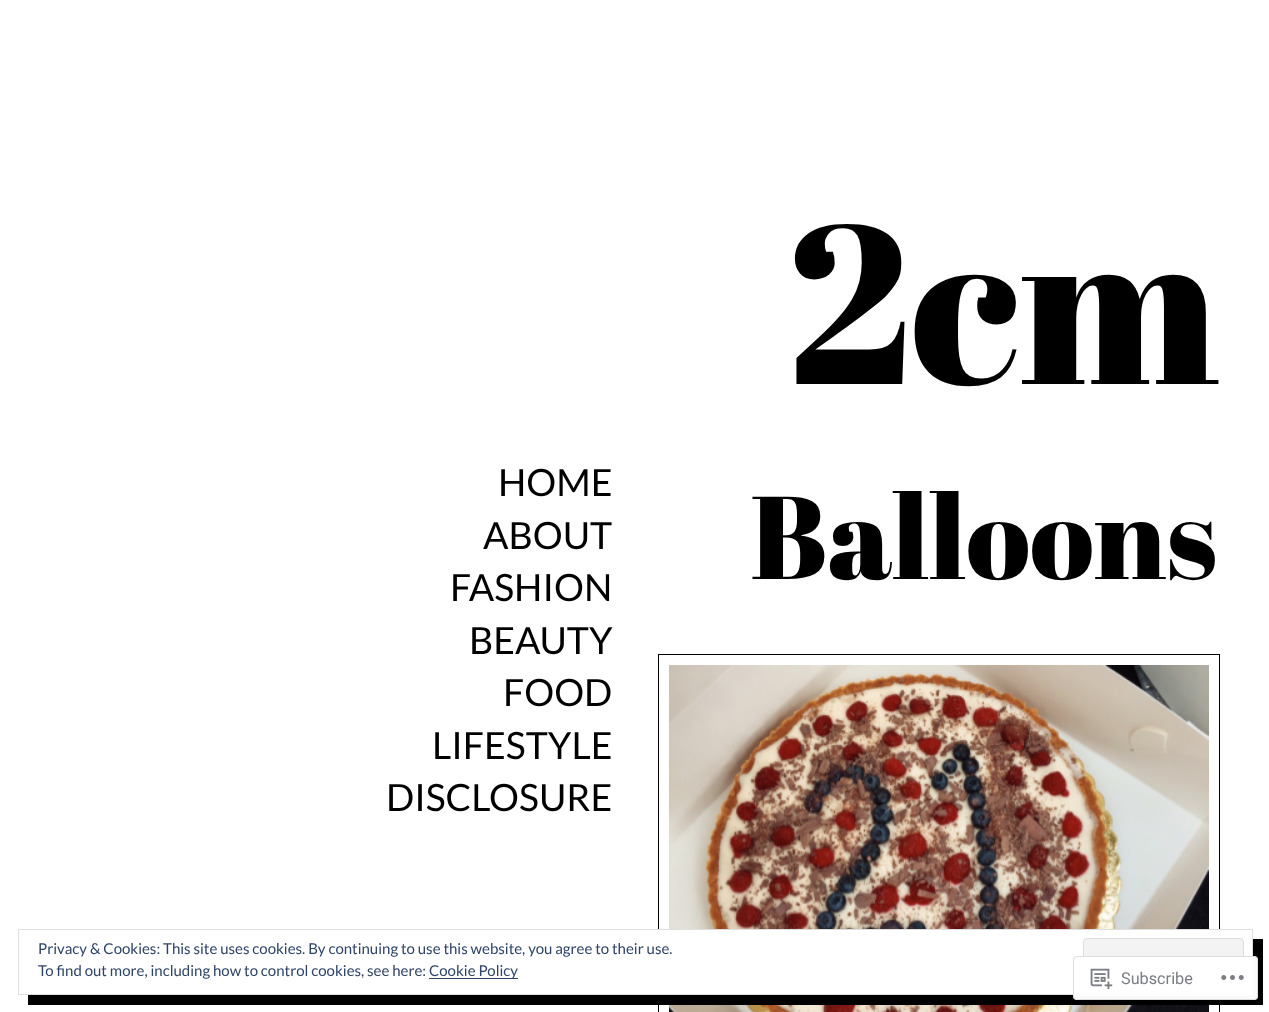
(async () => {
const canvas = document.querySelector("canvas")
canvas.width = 1269
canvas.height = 1012
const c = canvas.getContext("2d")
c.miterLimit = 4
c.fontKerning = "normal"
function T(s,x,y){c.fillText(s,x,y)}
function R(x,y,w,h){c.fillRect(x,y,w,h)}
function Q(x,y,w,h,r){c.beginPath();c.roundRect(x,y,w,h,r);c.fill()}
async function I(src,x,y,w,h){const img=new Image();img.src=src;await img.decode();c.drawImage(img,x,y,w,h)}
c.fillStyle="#fff"
R(0,0,1269,1012)
c.font="225px Abril Fatface"
c.fillStyle="#000"
T("2cm",787,384)
c.font="37.5px Lato"
T("HOME",498,496)
T("ABOUT",483,549)
T("FASHION",450,601)
T("BEAUTY",469,654)
T("FOOD",503,706)
T("LIFESTYLE",432,759)
T("DISCLOSURE",386,811)
c.font="117.5px Abril Fatface"
T("Balloons",750,579)
c.strokeStyle="#000"
c.strokeRect(658.5,654.5,561,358)
await I("1.png",669,665,540,347)
R(28,939,1235,66)
c.fillStyle="#fff"
R(28,930,1224,64)
c.strokeStyle="#dedede"
c.strokeRect(18.5,929.5,1234,65)
c.font="15px Lato"
c.fillStyle="#2e4467"
T("Privacy & Cookies: This site uses cookies. By continuing to use this website, you agree to their use.",38,954)
c.fillStyle="#f3f3f3"
c.beginPath()
c.roundRect(1083.5,938.5,160,47,3.5)
c.fill()
c.stroke()
c.fillStyle="#2e4467"
T("To find out more, including how to control cookies, see here:",38,976)
R(429,978,89,1)
T("Cookie Policy",429,976)
c.fillStyle="#fffffffa"
Q(1073,956,185,44,4)
c.beginPath()
c.roundRect(1073.5,956.5,184,43,3.5)
c.strokeStyle="#dcdcdefa"
c.stroke()
await I("2.png",1090,968,23,22)
c.font="16.25px Roboto"
c.fillStyle="#7a7e84"
T("Subscribe",1121,984)
await I("3.png",1221,975,23,5)
})()
